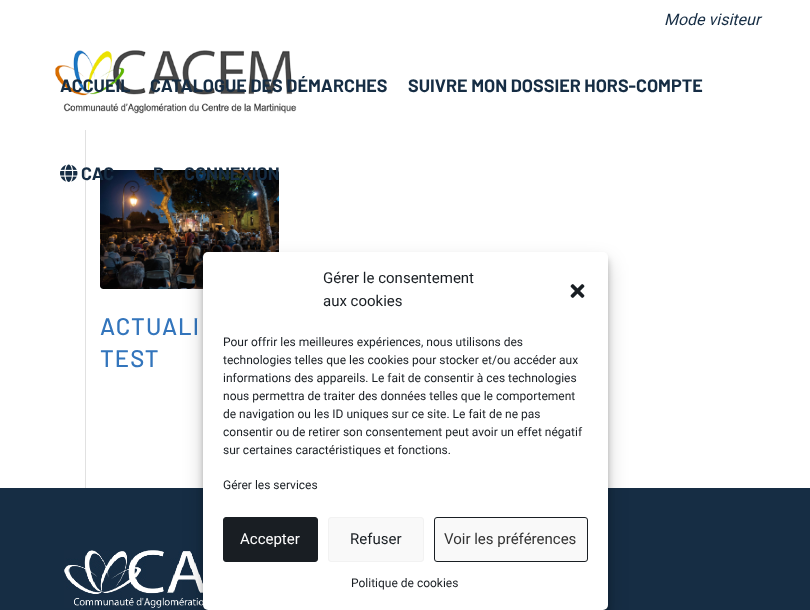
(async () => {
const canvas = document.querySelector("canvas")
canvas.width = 810
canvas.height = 610
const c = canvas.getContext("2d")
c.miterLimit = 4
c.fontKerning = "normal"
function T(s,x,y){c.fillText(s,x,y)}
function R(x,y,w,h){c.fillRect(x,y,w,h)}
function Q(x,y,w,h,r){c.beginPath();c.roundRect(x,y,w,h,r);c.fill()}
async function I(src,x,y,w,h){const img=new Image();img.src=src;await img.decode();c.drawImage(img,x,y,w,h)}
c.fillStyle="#fff"
R(0,0,810,610)
c.font="italic 16px Roboto"
c.fillStyle="#162d44"
T("Mode visiteur",664,25)
await I("1.png",55,50,244,64)
c.font="bold 18px Barlow"
T("ACCUEIL",60,92)
T("CATALOGUE DES DÉMARCHES",150,92)
T("SUIVRE MON DOSSIER HORS-COMPTE",408,92)
await I("2.png",60,164,18,18)
c.fillStyle="#e1e1e1"
R(85,130,1,358)
await I("3.png",100,170,179,119)
c.fillStyle="#162d44"
T("CAC",81,180)
T("R",153,180)
T("CONNEXION",184,180)
c.letterSpacing="1px"
c.font="500 24px Barlow"
c.fillStyle="#3375bc"
T("ACTUALI",100,335)
T("TEST",100,367)
c.fillStyle="#162d44"
R(0,488,810,122)
await I("5.png",64,550,140,58)
c.fillStyle="#0000003b"
c.filter="blur(3px)"
c.beginPath()
c.roundRect(203,258,405,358,5)
c.fill()
c.filter="none"
c.fillStyle="#00000030"
c.filter="blur(10px)"
c.beginPath()
c.roundRect(203,262,405,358,5)
c.fill()
c.filter="none"
c.fillStyle="#fff"
Q(203,252,405,358,5)
c.letterSpacing="0px"
c.font="15px Roboto"
c.fillStyle="#191e23"
T("Gérer le consentement",323,283)
T("aux cookies",323,306)
await I("4.png",570,284,15,14)
c.font="12px Roboto"
T("Pour offrir les meilleures expériences, nous utilisons des",223,346)
T("technologies telles que les cookies pour stocker et/ou accéder aux",223,364)
T("informations des appareils. Le fait de consentir à ces technologies",223,382)
T("nous permettra de traiter des données telles que le comportement",223,400)
T("de navigation ou les ID uniques sur ce site. Le fait de ne pas",223,418)
T("consentir ou de retirer son consentement peut avoir un effet négatif",223,436)
T("sur certaines caractéristiques et fonctions.",223,454)
T("Gérer les services",223,489)
c.beginPath()
c.roundRect(223.5,517.5,94,44,2.5)
c.fill()
c.strokeStyle="#191e23"
c.stroke()
c.font="15px Roboto"
c.fillStyle="#fff"
T("Accepter",240,544)
c.fillStyle="#f9f9f9"
c.beginPath()
c.roundRect(328.5,517.5,95,44,2.5)
c.fill()
c.strokeStyle="#f2f2f2"
c.stroke()
c.fillStyle="#191e23"
T("Refuser",350,544)
c.fillStyle="#f9f9f9"
c.beginPath()
c.roundRect(434.5,517.5,153,44,2.5)
c.fill()
c.strokeStyle="#191e23"
c.stroke()
c.fillStyle="#333"
T("Voir les préférences",444,544)
c.font="12px Roboto"
c.fillStyle="#191e23"
T("Politique de cookies",351,587)
})()
